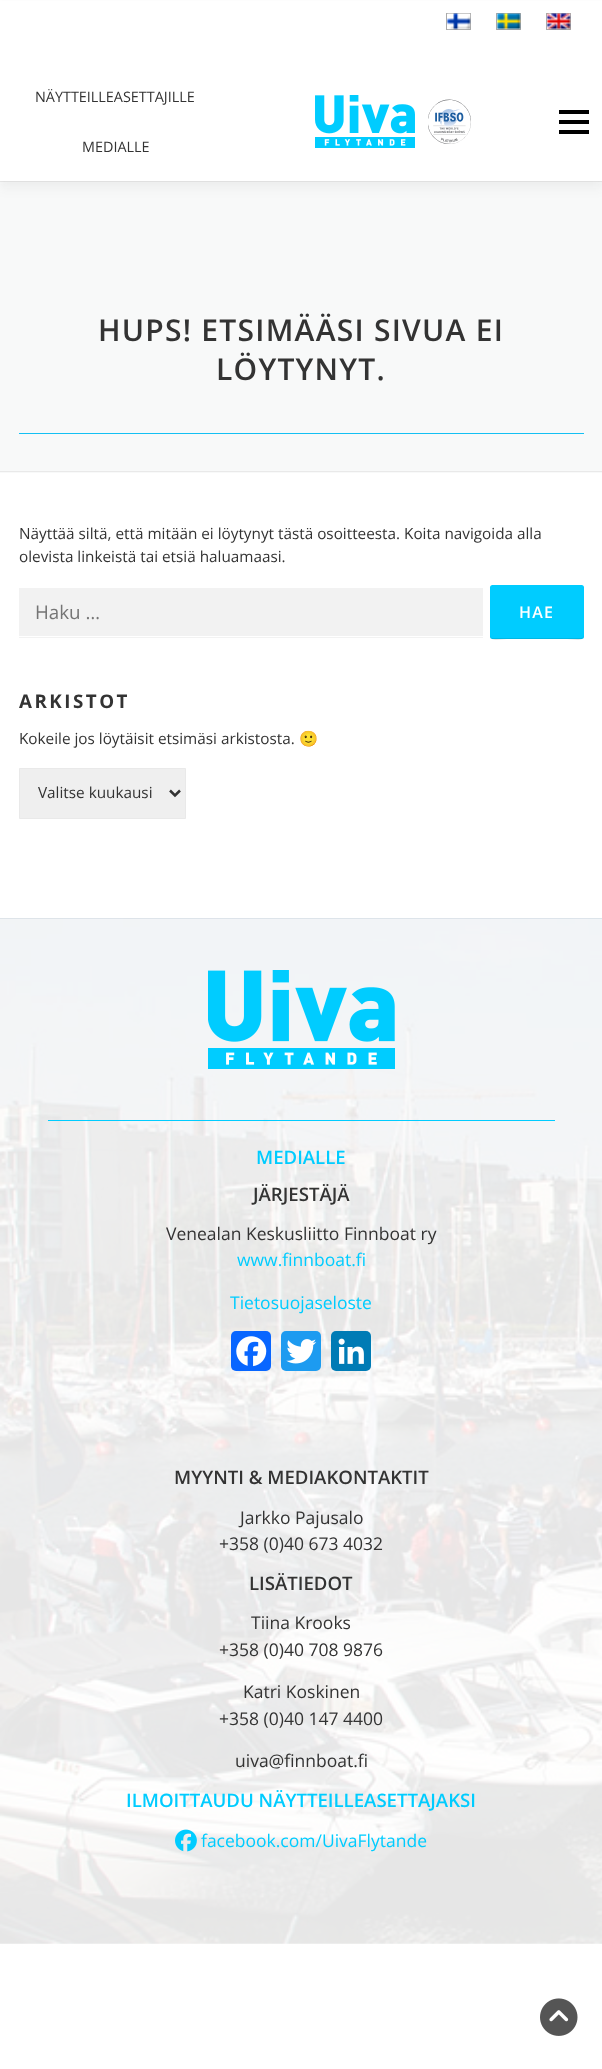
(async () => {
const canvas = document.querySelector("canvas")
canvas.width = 602
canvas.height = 2069
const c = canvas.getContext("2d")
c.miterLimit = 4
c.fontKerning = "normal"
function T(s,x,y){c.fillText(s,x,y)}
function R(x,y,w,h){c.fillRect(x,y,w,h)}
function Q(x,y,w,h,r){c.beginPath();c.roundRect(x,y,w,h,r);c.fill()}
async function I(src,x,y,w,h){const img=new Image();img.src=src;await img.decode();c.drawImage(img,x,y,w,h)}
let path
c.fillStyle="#fff"
R(0,0,602,2069)
c.fillStyle="#f8f9f9"
R(0,182,602,291)
c.fillStyle="#e9e9e9"
R(0,181,602,1)
c.fillStyle="#3232320f"
c.filter="blur(6px)"
c.beginPath()
c.rect(0,6,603,182)
c.fill()
c.filter="none"
c.fillStyle="#fff"
R(0,1,602,180)
c.strokeStyle="#aaa"
c.strokeRect(446.5,13.5,24,16)
await I("1.png",447,13,24,17)
c.strokeRect(496.5,13.5,24,16)
await I("2.png",497,13,24,17)
c.strokeRect(546.5,13.5,24,16)
await I("3.png",547,13,24,17)
c.font="14.4px Open Sans"
c.fillStyle="#333"
T("NÄYTTEILLEASETTAJILLE",35,102)
T("MEDIALLE",82,152)
await I("4.png",315,95,100,53)
await I("5.png",428,99,43,45)
c.fillStyle="#000"
R(559,120,30,4)
R(559,110,30,4)
R(559,130,30,4)
c.fillStyle="#e9e9e9"
R(0,471,602,1)
c.fillStyle="#14c0f3"
R(19,433,565,1)
c.letterSpacing="1.25px"
c.font="600 30px Open Sans"
c.fillStyle="#333"
T("HUPS! ETSIMÄÄSI SIVUA EI",98,341)
T("LÖYTYNYT.",216,380)
c.letterSpacing="0px"
c.font="15.3px Open Sans"
T("Näyttää siltä, että mitään ei löytynyt tästä osoitteesta. Koita navigoida alla",19,539)
T("olevista linkeistä tai etsiä haluamaasi.",19,562)
c.fillStyle="#f2f2f2"
R(19,588,464,50)
c.fillStyle="#fff"
R(19,636,464,1)
c.font="18.75px Open Sans"
c.fillStyle="#757575"
T("Haku …",35,619)
c.fillStyle="#0cf"
Q(490,585,94,54,2.5)
c.fillStyle="#0000001a"
path = new Path2D("M490 635c0 8 12 4 17 4h60c5 0 17 4 17-4c0 1-1 3-3 3h-89c-1 0-2-2-2-3z")
c.fill(path)
c.letterSpacing="1.25px"
c.font="600 16px Open Sans"
c.fillStyle="#fff"
T("HAE",519,618)
c.letterSpacing="2.5px"
c.font="bold 18.75px Open Sans"
c.fillStyle="#333"
T("ARKISTOT",19,708)
c.letterSpacing="0px"
c.font="15.3px Open Sans"
T("Kokeile jos löytäisit etsimäsi arkistosta.",19,744)
c.font="15.3px Noto Color Emoji"
T("🙂",299,744)
c.fillStyle="#efefef"
c.beginPath()
c.rect(19.5,768.5,166,50)
c.fill()
c.strokeStyle="#e9e9e9"
c.stroke()
path = new Path2D("M170 790.5l5 5l5-5")
c.strokeStyle="#333"
c.lineWidth=2.5
c.stroke(path)
c.font="15.3px Open Sans"
c.fillStyle="#333"
T("Valitse kuukausi",38,798)
await I("6.png",0,918,602,1026)
await I("7.png",208,970,187,99)
c.fillStyle="#0cf"
R(48,1120,507,1)
c.font="600 18.6px Open Sans"
T("MEDIALLE",256,1164)
c.fillStyle="#333"
T("JÄRJESTÄJÄ",253,1201)
c.font="17.5px Open Sans"
T("Venealan Keskusliitto Finnboat ry",166,1240)
c.fillStyle="#0cf"
T("www.finnboat.fi",237,1266)
T("Tietosuojaseloste",230,1309)
c.fillStyle="#0866ff"
Q(231,1331,40,40,5)
await I("8.png",236,1336,31,31)
c.fillStyle="#1d9bf0"
Q(281,1331,40,40,5)
await I("9.png",286,1339,31,25)
c.fillStyle="#007bb5"
Q(331,1331,40,40,5)
await I("10.png",338,1338,26,26)
c.font="600 18.6px Open Sans"
c.fillStyle="#333"
T("MYYNTI & MEDIAKONTAKTIT",174,1484)
c.font="17.5px Open Sans"
T("Jarkko Pajusalo",240,1524)
T("+358 (0)40 673 4032",219,1550)
c.font="600 18.6px Open Sans"
T("LISÄTIEDOT",249,1590)
c.font="17.5px Open Sans"
T("Tiina Krooks",251,1629)
T("+358 (0)40 708 9876",219,1656)
T("Katri Koskinen",243,1698)
T("+358 (0)40 147 4400",219,1725)
T("uiva@finnboat.fi",235,1767)
c.font="600 18.6px Open Sans"
c.fillStyle="#0cf"
T("ILMOITTAUDU NÄYTTEILLEASETTAJAKSI",126,1807)
await I("11.png",175,1829,22,23)
c.font="17.5px Open Sans"
T("facebook.com/UivaFlytande",201,1847)
await I("12.png",540,1998,38,38)
})()
